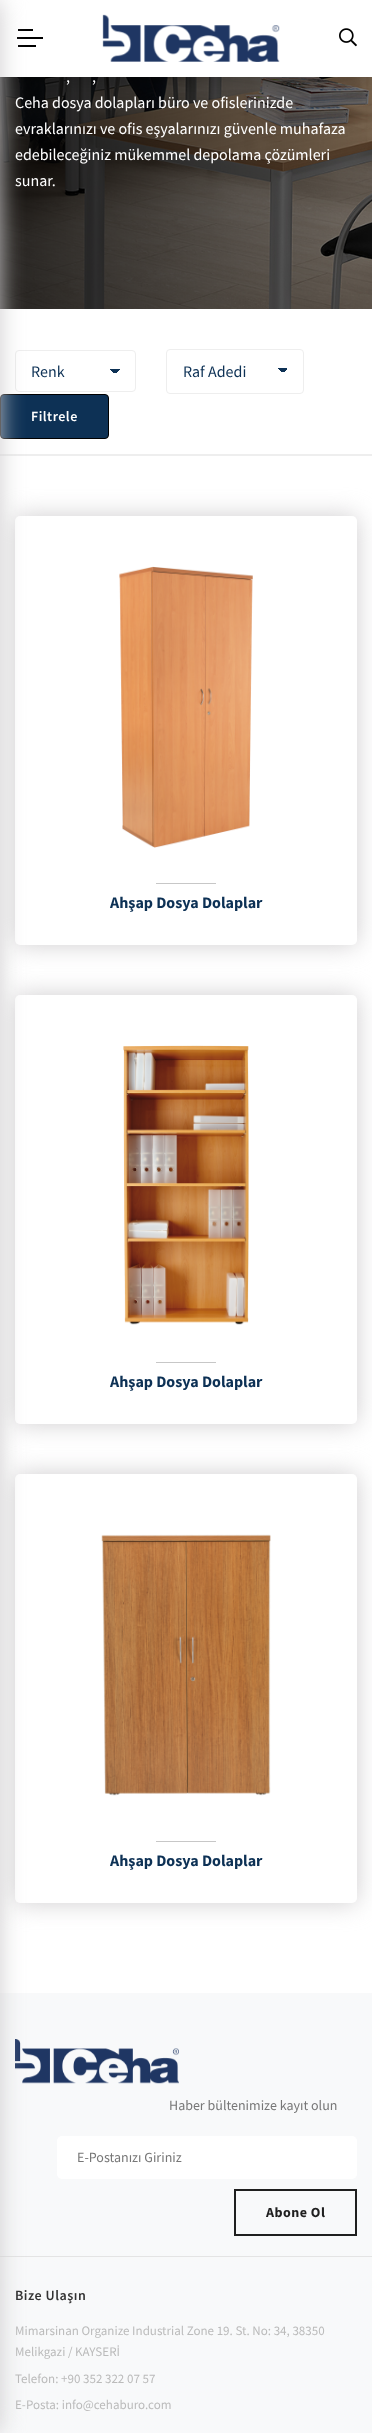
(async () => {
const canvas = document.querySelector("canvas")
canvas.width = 372
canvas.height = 2433
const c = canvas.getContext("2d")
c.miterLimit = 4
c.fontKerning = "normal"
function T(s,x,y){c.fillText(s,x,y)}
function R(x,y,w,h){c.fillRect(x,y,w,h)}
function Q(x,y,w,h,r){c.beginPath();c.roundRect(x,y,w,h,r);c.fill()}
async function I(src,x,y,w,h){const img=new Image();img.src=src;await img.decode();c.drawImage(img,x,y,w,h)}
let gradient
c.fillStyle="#fff"
R(0,0,372,2433)
await I("3.png",0,77,372,232)
c.fillStyle="#00000026"
c.filter="blur(8px)"
c.beginPath()
c.rect(0,8,372,77)
c.fill()
c.filter="none"
c.fillStyle="#fff"
R(0,0,372,77)
c.fillStyle="#000"
R(17,37,26,2)
R(18,29,15,2)
R(18,45,18,2)
await I("1.png",102,14,178,48)
await I("2.png",339,28,18,19)
c.fillStyle="#eee"
R(0,454,372,2)
gradient = c.createLinearGradient(115,369,120,374)
gradient.addColorStop(.5,"#0d3155")
gradient.addColorStop(.5,"#fff")
c.fillStyle = gradient
R(115,369,5,4)
gradient = c.createLinearGradient(110,374,115,369)
gradient.addColorStop(.5,"#fff")
gradient.addColorStop(.5,"#0d3155")
c.fillStyle = gradient
R(110,369,5,4)
c.beginPath()
c.roundRect(15.5,350.5,120,41,3.5)
c.strokeStyle="#eee"
c.stroke()
c.fillStyle="#0d3155"
c.beginPath()
c.roundRect(.5,394.5,108,44,3.5)
c.fill()
c.strokeStyle="#000"
c.stroke()
c.fillStyle="#cfcdcf"
c.filter="blur(12.5px)"
c.beginPath()
c.roundRect(15,516,342,429,5)
c.fill()
c.filter="none"
c.fillStyle="#fff"
Q(15,516,342,429,5)
c.fillStyle="#cfcdcf"
c.filter="blur(12.5px)"
c.beginPath()
c.roundRect(15,995,342,429,5)
c.fill()
c.filter="none"
c.fillStyle="#fff"
Q(15,995,342,429,5)
c.fillStyle="#cfcdcf"
c.filter="blur(12.5px)"
c.beginPath()
c.roundRect(15,1474,342,429,5)
c.fill()
c.filter="none"
c.fillStyle="#fff"
Q(15,1474,342,429,5)
c.fillStyle="#f8f9fa"
R(0,1993,372,440)
c.fillStyle="#e4e4e4"
R(0,2256,372,1)
await I("7.png",15,2039,164,45)
c.fillStyle="#cfcdcf"
c.filter="blur(12.5px)"
c.beginPath()
c.roundRect(-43,0,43,2433,5)
c.fill()
c.filter="none"
c.font="16px Source Sans Pro"
c.fillStyle="#fff"
T(",",66,82)
T(",",92,82)
T("Ceha dosya dolapları büro ve ofislerinizde",15,108)
T("evraklarınızı ve ofis eşyalarınızı güvenle muhafaza",15,134)
T("edebileceğiniz mükemmel depolama çözümleri",15,160)
T("sunar.",15,186)
c.fillStyle="#0d3155"
T("Renk",31,377)
gradient = c.createLinearGradient(283,368,288,373)
gradient.addColorStop(.5,"#0d3155")
gradient.addColorStop(.5,"#fff")
c.fillStyle = gradient
R(283,368,5,4)
gradient = c.createLinearGradient(278,373,283,368)
gradient.addColorStop(.5,"#fff")
gradient.addColorStop(.5,"#0d3155")
c.fillStyle = gradient
R(278,368,5,4)
c.beginPath()
c.roundRect(166.5,349.5,137,44,3.5)
c.strokeStyle="#eee"
c.stroke()
c.fillStyle="#0d3155"
T("Raf Adedi",183,377)
c.letterSpacing="0.5px"
c.font="600 14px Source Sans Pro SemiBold"
c.fillStyle="#fff"
T("Filtrele",31,421)
await I("4.png",119,566,134,282)
c.fillStyle="#c7c7c7"
R(156,883,60,1)
c.letterSpacing="0px"
c.font="bold 16px Source Sans Pro"
c.fillStyle="#0d3155"
T("Ahşap Dosya Dolaplar",110,908)
await I("5.png",123,1045,126,280)
c.fillStyle="#c7c7c7"
R(156,1362,60,1)
c.fillStyle="#0d3155"
T("Ahşap Dosya Dolaplar",110,1387)
await I("6.png",101,1534,170,262)
c.fillStyle="#c7c7c7"
R(156,1841,60,1)
c.fillStyle="#0d3155"
T("Ahşap Dosya Dolaplar",110,1866)
c.font="14px Source Sans Pro"
c.fillStyle="#777"
T("Haber bültenimize kayıt olun",169,2110)
c.fillStyle="#fff"
Q(57,2136,300,43,5)
c.fillStyle="#777"
T("E-Postanızı Giriniz",77,2162)
c.strokeStyle="#1f1f1f"
c.lineWidth=2
c.strokeRect(235,2190,121,45)
c.letterSpacing="0.5px"
c.font="bold 14px Source Sans Pro"
c.fillStyle="#1f1f1f"
T("Abone Ol",266,2217)
c.font="600 14px Source Sans Pro SemiBold"
c.fillStyle="#333"
T("Bize Ulaşın",15,2300)
c.letterSpacing="0px"
c.font="13px Source Sans Pro"
c.fillStyle="#bbb"
T("Mimarsinan Organize Industrial Zone 19. St. No: 34, 38350",15,2335)
T("Melikgazi / KAYSERİ",15,2356)
T("Telefon: +90 352 322 07 57",15,2383)
T("E-Posta: info@cehaburo.com",15,2409)
})()
